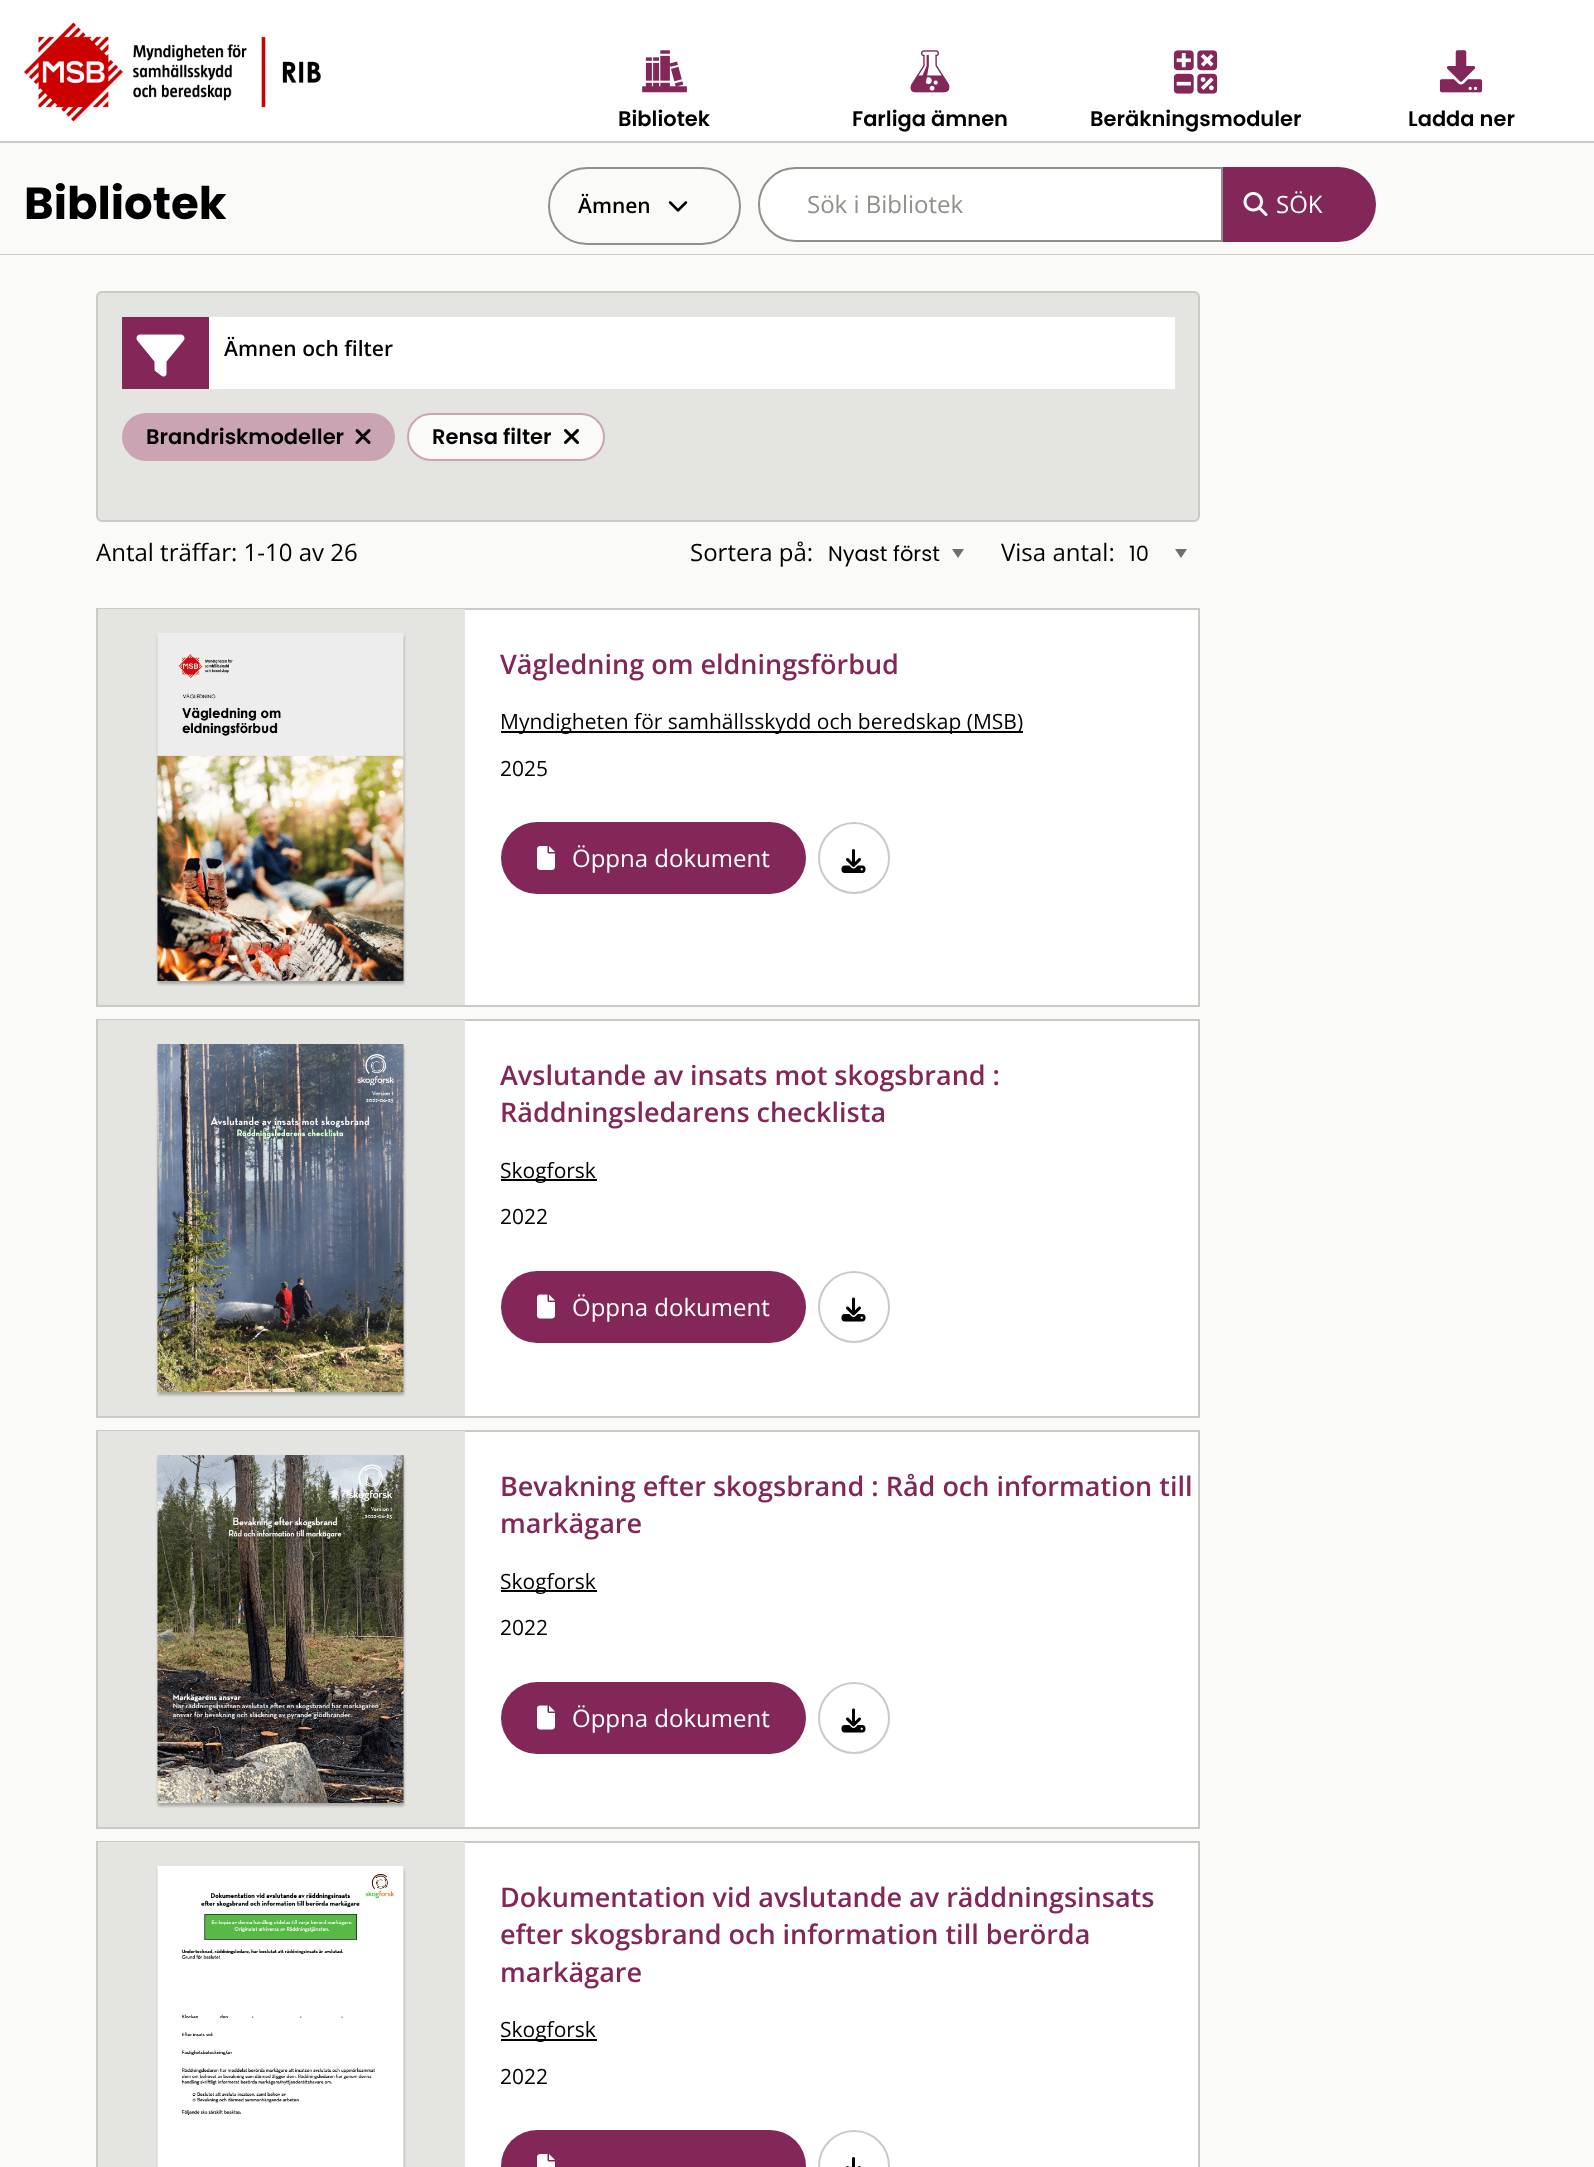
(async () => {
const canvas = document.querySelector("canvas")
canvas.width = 1594
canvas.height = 2167
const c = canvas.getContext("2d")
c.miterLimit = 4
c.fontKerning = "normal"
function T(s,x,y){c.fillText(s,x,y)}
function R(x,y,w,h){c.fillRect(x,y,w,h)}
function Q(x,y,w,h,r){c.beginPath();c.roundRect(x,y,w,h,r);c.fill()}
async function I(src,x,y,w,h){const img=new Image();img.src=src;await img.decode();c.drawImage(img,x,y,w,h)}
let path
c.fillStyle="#fafaf9"
R(0,0,1594,2167)
c.fillStyle="#fff"
R(0,0,1594,141)
c.fillStyle="#cacac5"
R(0,141,1594,2)
await I("1.png",24,22,297,100)
await I("2.png",642,50,45,43)
c.font="600 21px Poppins"
c.fillStyle="#000"
T("Bibliotek",618,126)
await I("3.png",910,50,40,43)
T("Farliga ämnen",852,126)
await I("4.png",1173,50,45,44)
T("Beräkningsmoduler",1090,126)
await I("5.png",1439,50,44,43)
T("Ladda ner",1408,126)
c.font="bold 45px Poppins"
T("Bibliotek",24,219)
c.beginPath()
c.roundRect(549,168,191,76,38)
c.strokeStyle="#908f88"
c.lineWidth=2
c.stroke()
c.font="600 21px Open Sans"
T("Ämnen",578,213)
await I("6.png",668,201,20,11)
c.fillStyle="#fff"
c.beginPath()
c.roundRect(759,168,463,73,[36.5,0,0,36.5])
c.fill()
c.stroke()
c.font="24px Open Sans"
c.fillStyle="#908f88"
T("Sök i Bibliotek",807,213)
c.fillStyle="#822757"
c.beginPath()
c.roundRect(1223,167,153,75,[0,37.5,37.5,0])
c.fill()
await I("7.png",1243,192,25,24)
c.fillStyle="#fff"
T("SÖK",1276,213)
c.fillStyle="#cacac5"
R(0,254,1594,1)
c.fillStyle="#e4e4e1"
c.beginPath()
c.roundRect(97,292,1102,229,5)
c.fill()
c.strokeStyle="#cacac5"
c.stroke()
c.fillStyle="#fff"
R(209,317,966,72)
c.fillStyle="#822757"
R(122,317,87,72)
await I("8.png",136,334,49,43)
c.font="600 21px Open Sans"
c.fillStyle="#000"
T("Ämnen och filter",224,356)
c.fillStyle="#caa4b3"
Q(122,413,273,48,24)
c.font="600 21px Poppins"
c.fillStyle="#000"
T("Brandriskmodeller",146,444)
await I("9.png",355,429,16,15)
c.fillStyle="#fafaf9"
c.beginPath()
c.roundRect(408,414,196,46,23)
c.fill()
c.strokeStyle="#caa4b3"
c.stroke()
c.fillStyle="#000"
T("Rensa filter",432,444)
await I("10.png",564,429,15,15)
c.font="24px Open Sans"
T("Antal träffar: 1-10 av 26",96,561)
T("Sortera på:",690,561)
c.fillStyle="#6f6e67"
path = new Path2D("M952 549h12l-6 9z")
c.fill(path)
c.font="21px Poppins"
c.fillStyle="#000"
T("Nyast först",828,561)
c.font="24px Open Sans"
T("Visa antal:",1001,561)
c.fillStyle="#6f6e67"
path = new Path2D("M1175 549h12l-6 9z")
c.fill(path)
c.font="21px Poppins"
c.fillStyle="#000"
T("10",1129,561)
c.fillStyle="#fff"
R(465,610,733,395)
c.strokeStyle="#cacac5"
c.strokeRect(97,609,1102,397)
c.fillStyle="#e4e4e1"
R(98,609,367,396)
c.fillStyle="#33333359"
c.filter="blur(1.5px)"
c.beginPath()
c.rect(158,636,246,348)
c.fill()
c.filter="none"
await I("11.png",157,633,247,348)
c.font="600 27px Open Sans"
c.fillStyle="#822757"
T("Vägledning om eldningsförbud",500,674)
c.fillStyle="#000"
R(501,731,522,2)
c.font="21px Open Sans"
T("Myndigheten för samhällsskydd och beredskap (MSB)",500,729)
T("2025",500,776)
c.fillStyle="#822757"
Q(501,822,305,72,36)
await I("12.png",537,846,18,24)
c.font="24px Open Sans"
c.fillStyle="#fff"
T("Öppna dokument",572,867)
c.beginPath()
c.arc(854,858,35,0,7)
c.stroke()
await I("13.png",841,849,25,24)
R(465,1021,733,395)
c.strokeRect(97,1020,1102,397)
c.fillStyle="#e4e4e1"
R(98,1020,367,396)
c.fillStyle="#33333359"
c.filter="blur(1.5px)"
c.beginPath()
c.rect(158,1047,246,348)
c.fill()
c.filter="none"
await I("14.png",157,1044,247,348)
c.font="600 27px Open Sans"
c.fillStyle="#822757"
T("Avslutande av insats mot skogsbrand :",500,1085)
T("Räddningsledarens checklista",500,1122)
c.fillStyle="#000"
R(501,1179,96,2)
c.font="21px Open Sans"
T("Skogforsk",500,1178)
T("2022",500,1224)
c.fillStyle="#822757"
Q(501,1271,305,72,36)
await I("15.png",537,1294,18,25)
c.font="24px Open Sans"
c.fillStyle="#fff"
T("Öppna dokument",572,1316)
c.beginPath()
c.arc(854,1307,35,0,7)
c.stroke()
await I("16.png",841,1297,25,25)
R(465,1432,733,395)
c.strokeRect(97,1431,1102,397)
c.fillStyle="#e4e4e1"
R(98,1431,367,396)
c.fillStyle="#33333359"
c.filter="blur(1.5px)"
c.beginPath()
c.rect(158,1458,246,348)
c.fill()
c.filter="none"
await I("17.png",157,1455,247,348)
c.font="600 27px Open Sans"
c.fillStyle="#822757"
T("Bevakning efter skogsbrand : Råd och information till",500,1496)
T("markägare",500,1533)
c.fillStyle="#000"
R(501,1590,96,2)
c.font="21px Open Sans"
T("Skogforsk",500,1589)
T("2022",500,1635)
c.fillStyle="#822757"
Q(501,1682,305,72,36)
await I("15.png",537,1705,18,25)
c.font="24px Open Sans"
c.fillStyle="#fff"
T("Öppna dokument",572,1727)
c.beginPath()
c.arc(854,1718,35,0,7)
c.stroke()
await I("16.png",841,1708,25,25)
R(465,1843,733,324)
c.strokeRect(97,1842,1102,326)
c.fillStyle="#e4e4e1"
R(98,1842,367,325)
c.fillStyle="#33333359"
c.filter="blur(1.5px)"
c.beginPath()
c.rect(158,1869,246,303)
c.fill()
c.filter="none"
await I("18.png",157,1866,247,301)
c.font="600 27px Open Sans"
c.fillStyle="#822757"
T("Dokumentation vid avslutande av räddningsinsats",500,1907)
T("efter skogsbrand och information till berörda",500,1944)
T("markägare",500,1982)
c.fillStyle="#000"
R(501,2039,96,2)
c.font="21px Open Sans"
T("Skogforsk",500,2037)
T("2022",500,2084)
c.fillStyle="#822757"
Q(501,2130,305,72,36)
await I("19.png",537,2154,18,13)
c.beginPath()
c.arc(854,2166,35,0,7)
c.stroke()
await I("20.png",846,2157,15,10)
})()
